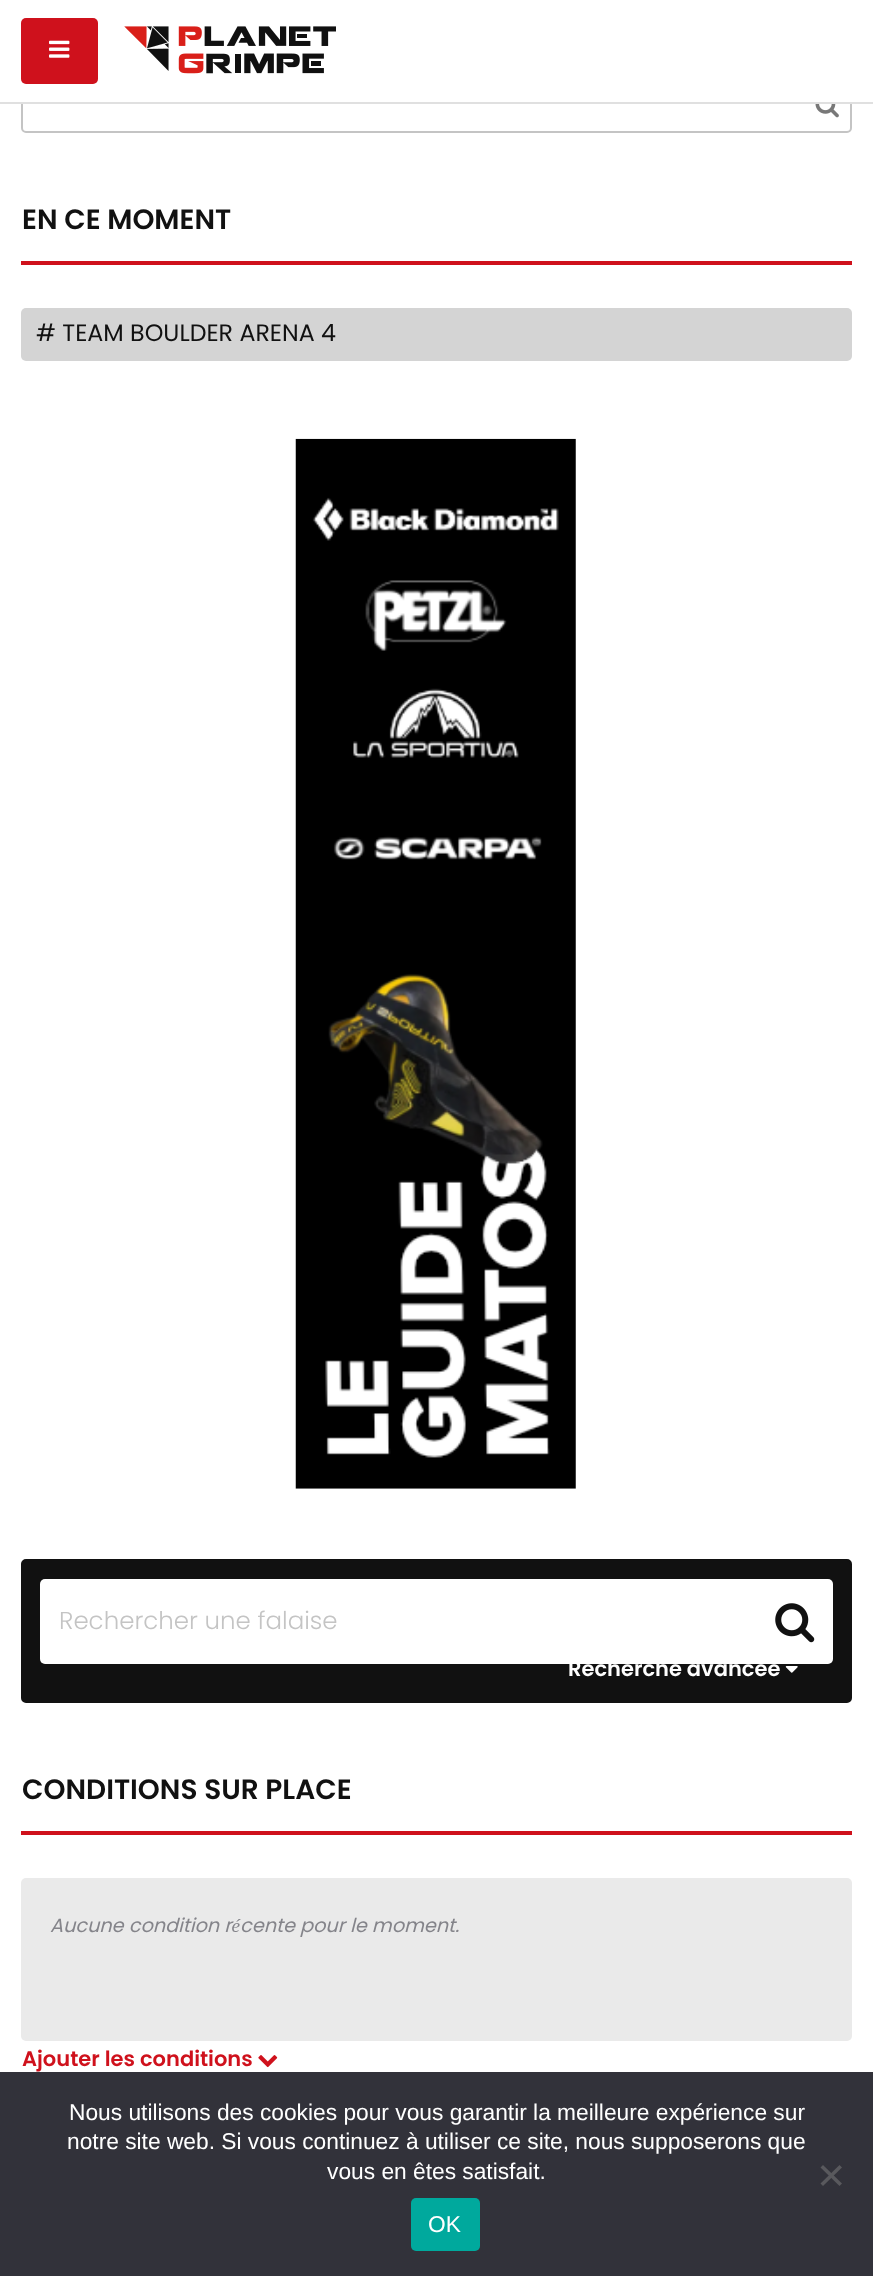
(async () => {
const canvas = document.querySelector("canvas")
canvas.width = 873
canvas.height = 2276
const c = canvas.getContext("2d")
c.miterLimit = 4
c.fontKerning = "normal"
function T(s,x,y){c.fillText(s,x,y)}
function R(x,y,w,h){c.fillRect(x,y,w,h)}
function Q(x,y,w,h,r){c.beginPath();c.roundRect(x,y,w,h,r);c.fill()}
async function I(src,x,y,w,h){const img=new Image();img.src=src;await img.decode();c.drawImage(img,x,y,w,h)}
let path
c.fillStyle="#fff"
R(0,0,873,2276)
c.beginPath()
c.roundRect(22,78,829,54,4)
c.strokeStyle="#c4c4c4"
c.lineWidth=2
c.stroke()
R(21,77,831,25)
c.fillStyle="#e0e0e0"
R(0,102,873,2)
c.fillStyle="#cf111c"
Q(21,18,77,66,5)
await I("1.png",49,40,21,18)
await I("2.png",124,26,212,48)
await I("3.png",815,104,24,14)
R(21,261,831,4)
c.font="600 28px Poppins"
c.fillStyle="#111"
T("EN CE MOMENT",22,229)
c.fillStyle="#d4d4d4"
Q(21,308,831,53,5)
c.font="23.75px Poppins"
c.fillStyle="#111"
T("# TEAM BOULDER ARENA 4",36,341)
await I("4.png",295,438,281,1051)
c.beginPath()
c.roundRect(22,1560,829,142,4)
c.fill()
c.strokeStyle="#111"
c.stroke()
c.fillStyle="#fff"
Q(40,1579,793,85,5)
c.font="300 24.5px Poppins"
c.fillStyle="#c4c4c4"
T("Rechercher une falaise",59,1629)
await I("5.png",775,1603,40,40)
c.font="600 21px Poppins"
c.fillStyle="#fff"
T("Recherche avancée",568,1676)
await I("6.png",785,1666,13,7)
c.fillStyle="#cf111c"
R(21,1831,831,4)
c.font="600 28px Poppins"
c.fillStyle="#111"
T("CONDITIONS SUR PLACE",22,1799)
c.fillStyle="#eaeaea"
Q(21,1878,831,163,5)
c.font="italic 19.25px Poppins"
c.fillStyle="#84848a"
T("Aucune condition récente pour le moment.",50,1932)
c.font="600 21px Poppins"
c.fillStyle="#cf111c"
T("Ajouter les conditions",22,2066)
await I("7.png",258,2055,20,13)
c.fillStyle="#32323a"
R(0,2072,873,204)
c.font="22.75px Liberation Sans"
c.fillStyle="#fff"
T("Nous utilisons des cookies pour vous garantir la meilleure expérience sur",69,2120)
T("notre site web. Si vous continuez à utiliser ce site, nous supposerons que",67,2149)
T("vous en êtes satisfait.",327,2179)
c.fillStyle="#59595d"
path = new Path2D("M839.5 2165l2.5 2.5l-19 18.5l-2.5-2.5z")
c.fill(path)
path = new Path2D("M820.5 2167.5l2.5-2.5l19 18.5l-2.5 2.5z")
c.fill(path)
c.fillStyle="#00a99d"
Q(411,2198,69,53,5)
c.fillStyle="#fff"
T("OK",428,2232)
})()
